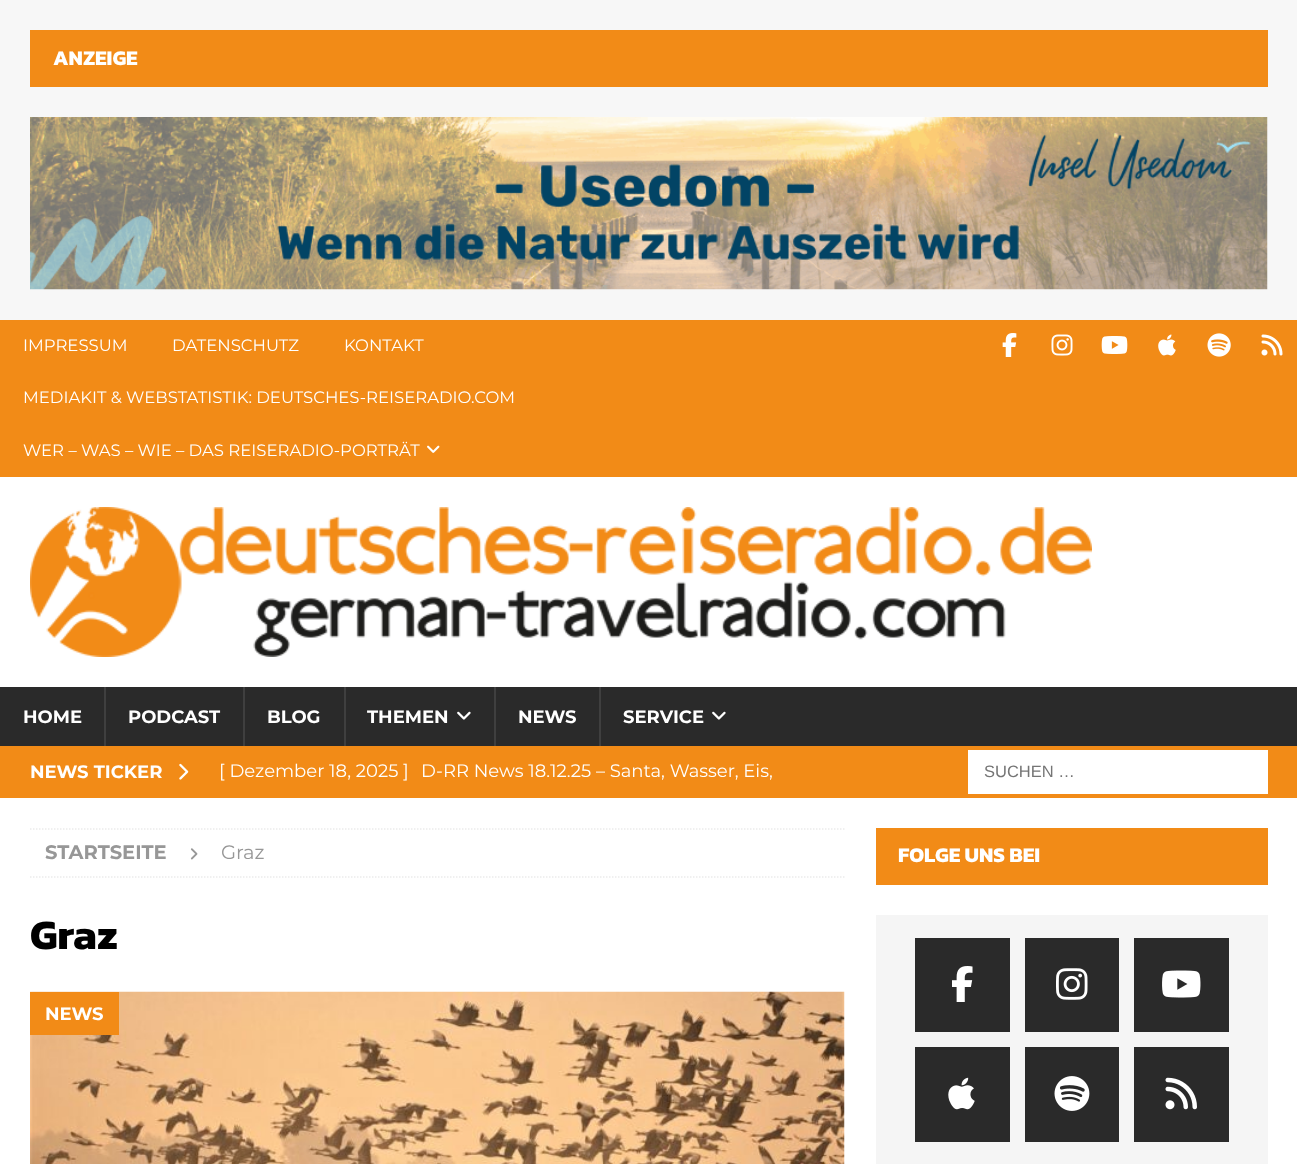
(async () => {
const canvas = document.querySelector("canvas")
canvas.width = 1297
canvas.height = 1164
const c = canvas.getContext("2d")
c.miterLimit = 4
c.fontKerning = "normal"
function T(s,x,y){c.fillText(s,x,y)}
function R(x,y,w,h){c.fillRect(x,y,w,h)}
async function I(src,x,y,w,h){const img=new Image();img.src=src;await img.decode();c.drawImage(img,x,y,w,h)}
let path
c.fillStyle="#f7f7f7"
R(0,0,1297,1164)
c.fillStyle="#f28b17"
R(30,30,1238,57)
c.font="bold 21px Kanit"
c.fillStyle="#fff"
T("ANZEIGE",53,65)
await I("1.png",30,117,1238,173)
c.fillStyle="#f28b17"
R(0,320,1297,157)
c.font="16.5px Montserrat"
c.fillStyle="#fff"
T("IMPRESSUM",23,351)
T("DATENSCHUTZ",172,351)
T("KONTAKT",344,351)
T("MEDIAKIT & WEBSTATISTIK: DEUTSCHES-REISERADIO.COM",23,403)
T("WER – WAS – WIE – DAS REISERADIO-PORTRÄT",23,456)
await I("2.png",427,445,13,8)
await I("3.png",1002,333,15,24)
await I("4.png",1051,334,22,22)
await I("5.png",1101,336,27,18)
await I("6.png",1158,334,18,22)
await I("7.png",1207,333,24,24)
await I("8.png",1261,334,22,22)
R(0,477,1297,210)
await I("9.png",30,507,1062,150)
c.fillStyle="#2a2a2a"
R(0,687,1297,59)
c.font="bold 18px Montserrat"
c.fillStyle="#fff"
T("HOME",23,723)
c.fillStyle="#3f3f3f"
R(104,687,2,59)
c.fillStyle="#fff"
T("PODCAST",128,723)
c.fillStyle="#3f3f3f"
R(243,687,2,59)
c.fillStyle="#fff"
T("BLOG",267,723)
c.fillStyle="#3f3f3f"
R(344,687,2,59)
c.fillStyle="#fff"
T("THEMEN",367,723)
await I("10.png",457,711,14,9)
c.fillStyle="#3f3f3f"
R(494,687,2,59)
c.fillStyle="#fff"
T("NEWS",518,723)
c.fillStyle="#3f3f3f"
R(599,687,2,59)
c.fillStyle="#fff"
T("SERVICE",623,723)
await I("10.png",712,711,14,9)
c.fillStyle="#f28b17"
R(0,746,1297,52)
c.fillStyle="#fff"
T("NEWS TICKER",30,778)
await I("11.png",179,763,10,17)
c.font="18px Montserrat"
T("[ Dezember 18, 2025 ]",219,777)
T("D-RR News 18.12.25 – Santa, Wasser, Eis,",421,777)
R(968,750,300,44)
c.font="16.5px Liberation Sans"
c.fillStyle="#757575"
T("SUCHEN …",984,777)
c.fillStyle="#fff"
R(0,798,1297,366)
path = new Path2D("M30 829h814.5")
c.strokeStyle="#ebebeb"
c.lineWidth=1.5
c.setLineDash([1.5,1.5])
c.stroke(path)
path = new Path2D("M30 877h814.5")
c.stroke(path)
c.font="bold 19.5px Montserrat"
c.fillStyle="#979797"
T("STARTSEITE",45,859)
await I("12.png",190,848,8,12)
c.font="19.5px Montserrat"
T("Graz",221,859)
c.font="bold 42px Kanit"
c.fillStyle="#000"
T("Graz",30,949)
await I("13.png",30,991,815,173)
c.fillStyle="#f28b17"
R(30,992,89,43)
c.font="bold 18px Montserrat"
c.fillStyle="#fff"
T("NEWS",45,1020)
c.fillStyle="#f28b17"
R(876,828,392,57)
c.font="bold 21px Kanit"
c.fillStyle="#fff"
T("FOLGE UNS BEI",898,862)
c.fillStyle="#f5f5f5"
R(876,915,392,249)
c.fillStyle="#2a2a2a"
R(915,938,95,94)
await I("14.png",952,966,21,36)
R(1025,938,94,94)
await I("15.png",1056,968,32,32)
R(1134,938,95,94)
await I("16.png",1162,970,39,28)
R(915,1047,95,95)
await I("17.png",948,1077,27,33)
R(1025,1047,94,95)
await I("18.png",1054,1076,36,35)
R(1134,1047,95,95)
await I("19.png",1165,1077,32,33)
})()
